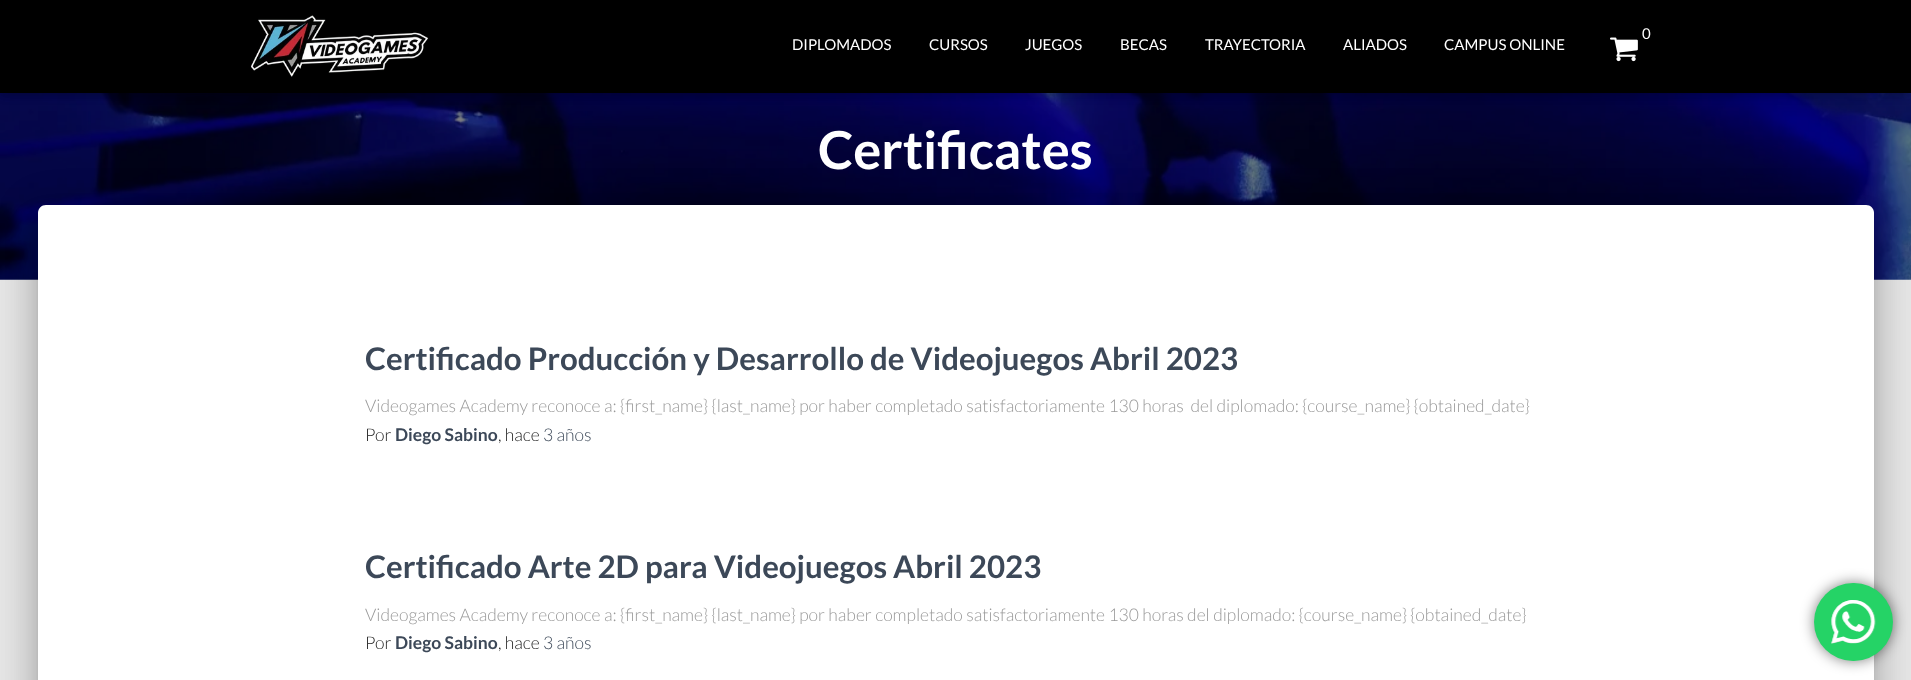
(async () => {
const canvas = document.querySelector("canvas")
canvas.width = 1911
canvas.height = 680
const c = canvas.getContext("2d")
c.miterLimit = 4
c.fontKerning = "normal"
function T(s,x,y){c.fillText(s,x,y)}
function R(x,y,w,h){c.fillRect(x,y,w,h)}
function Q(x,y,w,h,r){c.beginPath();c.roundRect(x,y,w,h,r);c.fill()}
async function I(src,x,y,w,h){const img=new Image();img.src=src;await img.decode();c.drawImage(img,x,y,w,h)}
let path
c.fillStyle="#e5e5e5"
R(0,0,1911,680)
await I("3.png",0,93,1911,187)
c.fillStyle="#0000001a"
c.filter="blur(3px)"
c.beginPath()
c.rect(3,8,1906,87)
c.fill()
c.filter="none"
c.fillStyle="#0000001f"
c.filter="blur(6px)"
c.beginPath()
c.rect(0,1,1911,93)
c.fill()
c.filter="none"
c.fillStyle="#0000006b"
c.filter="blur(6px)"
c.beginPath()
c.rect(8,9,1896,77)
c.fill()
c.filter="none"
c.fillStyle="#000"
R(0,0,1911,93)
await I("1.png",251,15,178,62)
await I("2.png",1610,37,28,25)
c.beginPath()
c.arc(1646,34,10,0,7)
c.fill()
c.font="15px Lato"
c.fillStyle="#fff"
T("0",1642,39)
T("DIPLOMADOS",792,50)
T("CURSOS",929,50)
T("JUEGOS",1025,50)
T("BECAS",1120,50)
T("TRAYECTORIA",1205,50)
T("ALIADOS",1343,50)
T("CAMPUS ONLINE",1444,50)
c.font="bold 52.5px Lato"
T("Certificates",818,169)
c.fillStyle="#00000033"
c.filter="blur(6px)"
c.beginPath()
c.roundRect(44,221,1824,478,1)
c.fill()
c.filter="none"
c.fillStyle="#0000001f"
c.filter="blur(19px)"
c.beginPath()
c.roundRect(31,206,1849,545,14)
c.fill()
c.filter="none"
c.fillStyle="#00000024"
c.filter="blur(15px)"
c.beginPath()
c.roundRect(35,223,1841,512,10)
c.fill()
c.filter="none"
c.fillStyle="#fff"
path = new Path2D("M46 205h1820c4.5 0 8 3.5 8 8v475h-1836v-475c0-4.5 3.5-8 8-8z")
c.fill(path)
c.font="bold 31.25px Lato"
c.fillStyle="#3c4858"
T("Certificado Producción y Desarrollo de Videojuegos Abril 2023",365,370)
c.font="300 17.5px Lato"
c.fillStyle="#999"
T("Videogames Academy reconoce a: {first_name} {last_name} por haber completado satisfactoriamente 130 horas  del diplomado: {course_name} {obtained_date}",365,412)
c.fillStyle="#212121"
T("Por",365,441)
c.font="bold 17.5px Lato"
c.fillStyle="#3c4858"
T("Diego Sabino",395,441)
c.font="300 17.5px Lato"
c.fillStyle="#212121"
T(", hace",498,441)
c.fillStyle="#3c4858"
T("3 años",543,441)
c.font="bold 31.25px Lato"
T("Certificado Arte 2D para Videojuegos Abril 2023",365,578)
c.font="300 17.5px Lato"
c.fillStyle="#999"
T("Videogames Academy reconoce a: {first_name} {last_name} por haber completado satisfactoriamente 130 horas del diplomado: {course_name} {obtained_date}",365,621)
c.fillStyle="#212121"
T("Por",365,649)
c.font="bold 17.5px Lato"
c.fillStyle="#3c4858"
T("Diego Sabino",395,649)
c.font="300 17.5px Lato"
c.fillStyle="#212121"
T(", hace",498,649)
c.fillStyle="#3c4858"
T("3 años",543,649)
c.fillStyle="#00000080"
c.filter="blur(7px)"
c.beginPath()
c.roundRect(1814,583,79,78,39)
c.fill()
c.filter="none"
c.fillStyle="#25d366"
Q(1814,583,79,78,39)
await I("4.png",1831,600,45,44)
})()
